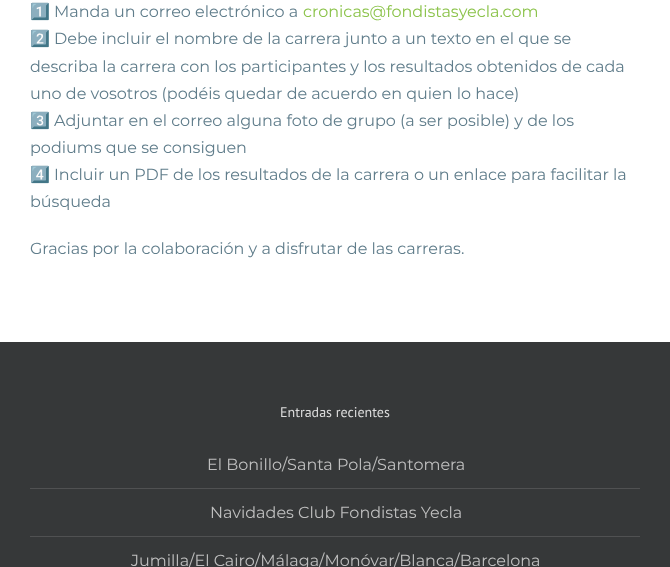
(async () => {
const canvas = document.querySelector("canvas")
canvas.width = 670
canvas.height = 567
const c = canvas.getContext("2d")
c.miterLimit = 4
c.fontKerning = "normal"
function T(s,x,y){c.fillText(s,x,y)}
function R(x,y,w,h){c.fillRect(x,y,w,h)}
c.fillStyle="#fff"
R(0,0,670,567)
c.font="16px Noto Color Emoji"
c.fillStyle="#607d8b"
T("1️⃣",30,17)
c.font="16px Montserrat"
T("Manda un correo electrónico a",54,17)
c.fillStyle="#8bc34a"
T("cronicas@fondistasyecla.com",303,17)
c.font="16px Noto Color Emoji"
c.fillStyle="#607d8b"
T("2️⃣",30,44)
c.font="16px Montserrat"
T("Debe incluir el nombre de la carrera junto a un texto en el que se",54,44)
T("describa la carrera con los participantes y los resultados obtenidos de cada",30,72)
T("uno de vosotros (podéis quedar de acuerdo en quien lo hace)",30,99)
c.font="16px Noto Color Emoji"
T("3️⃣",30,126)
c.font="16px Montserrat"
T("Adjuntar en el correo alguna foto de grupo (a ser posible) y de los",54,126)
T("podiums que se consiguen",30,153)
c.font="16px Noto Color Emoji"
T("4️⃣",30,180)
c.font="16px Montserrat"
T("Incluir un PDF de los resultados de la carrera o un enlace para facilitar la",54,180)
T("búsqueda",30,207)
T("Gracias por la colaboración y a disfrutar de las carreras.",30,254)
c.fillStyle="#363839"
R(0,342,670,225)
c.font="14px PT Sans"
c.fillStyle="#ddd"
T("Entradas recientes",280,417)
c.fillStyle="#505152"
R(30,488,610,1)
c.font="16px Montserrat"
c.fillStyle="#bfbfbf"
T("El Bonillo/Santa Pola/Santomera",207,470)
c.fillStyle="#505152"
R(30,536,610,1)
c.fillStyle="#bfbfbf"
T("Navidades Club Fondistas Yecla",210,518)
T("Jumilla/El Cairo/Málaga/Monóvar/Blanca/Barcelona",131,566)
})()
